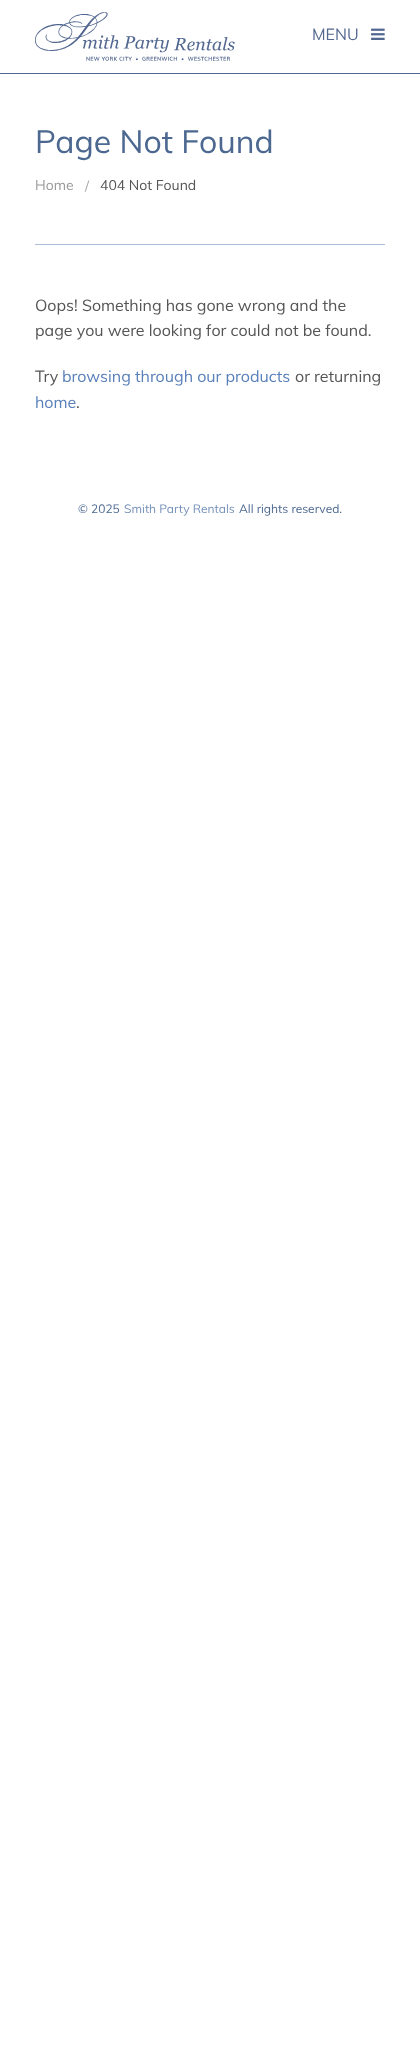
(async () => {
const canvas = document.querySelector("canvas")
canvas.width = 420
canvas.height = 2062
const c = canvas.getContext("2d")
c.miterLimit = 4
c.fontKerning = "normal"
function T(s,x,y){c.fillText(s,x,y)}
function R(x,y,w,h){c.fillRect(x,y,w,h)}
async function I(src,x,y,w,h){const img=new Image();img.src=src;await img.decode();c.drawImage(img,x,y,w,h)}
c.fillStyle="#fff"
R(0,0,420,2062)
c.fillStyle="#536890"
R(0,73,420,1)
await I("1.png",35,12,200,49)
c.font="16px Muli"
T("MENU",312,40)
await I("2.png",371,28,14,12)
c.fillStyle="#adbedb"
R(35,244,350,1)
c.font="32px Muli"
c.fillStyle="#4c6891"
T("Page Not Found",35,153)
c.font="14px Muli"
c.fillStyle="#999"
T("Home",35,190)
c.fillStyle="#aaa"
T("/",85,191)
c.fillStyle="#555"
T("404 Not Found",100,190)
c.font="16px Muli"
T("Oops! Something has gone wrong and the",35,311)
T("page you were looking for could not be found.",35,336)
T("Try",35,382)
c.fillStyle="#5980ba"
T("browsing through our products",62,382)
c.fillStyle="#555"
T("or returning",295,382)
c.fillStyle="#5980ba"
T("home",35,408)
c.fillStyle="#555"
T(".",76,408)
c.font="12px Muli"
c.fillStyle="#4c6891"
T("© 2025",78,513)
c.fillStyle="#7591ba"
T("Smith Party Rentals",124,513)
c.fillStyle="#4c6891"
T("All rights reserved.",239,513)
})()
